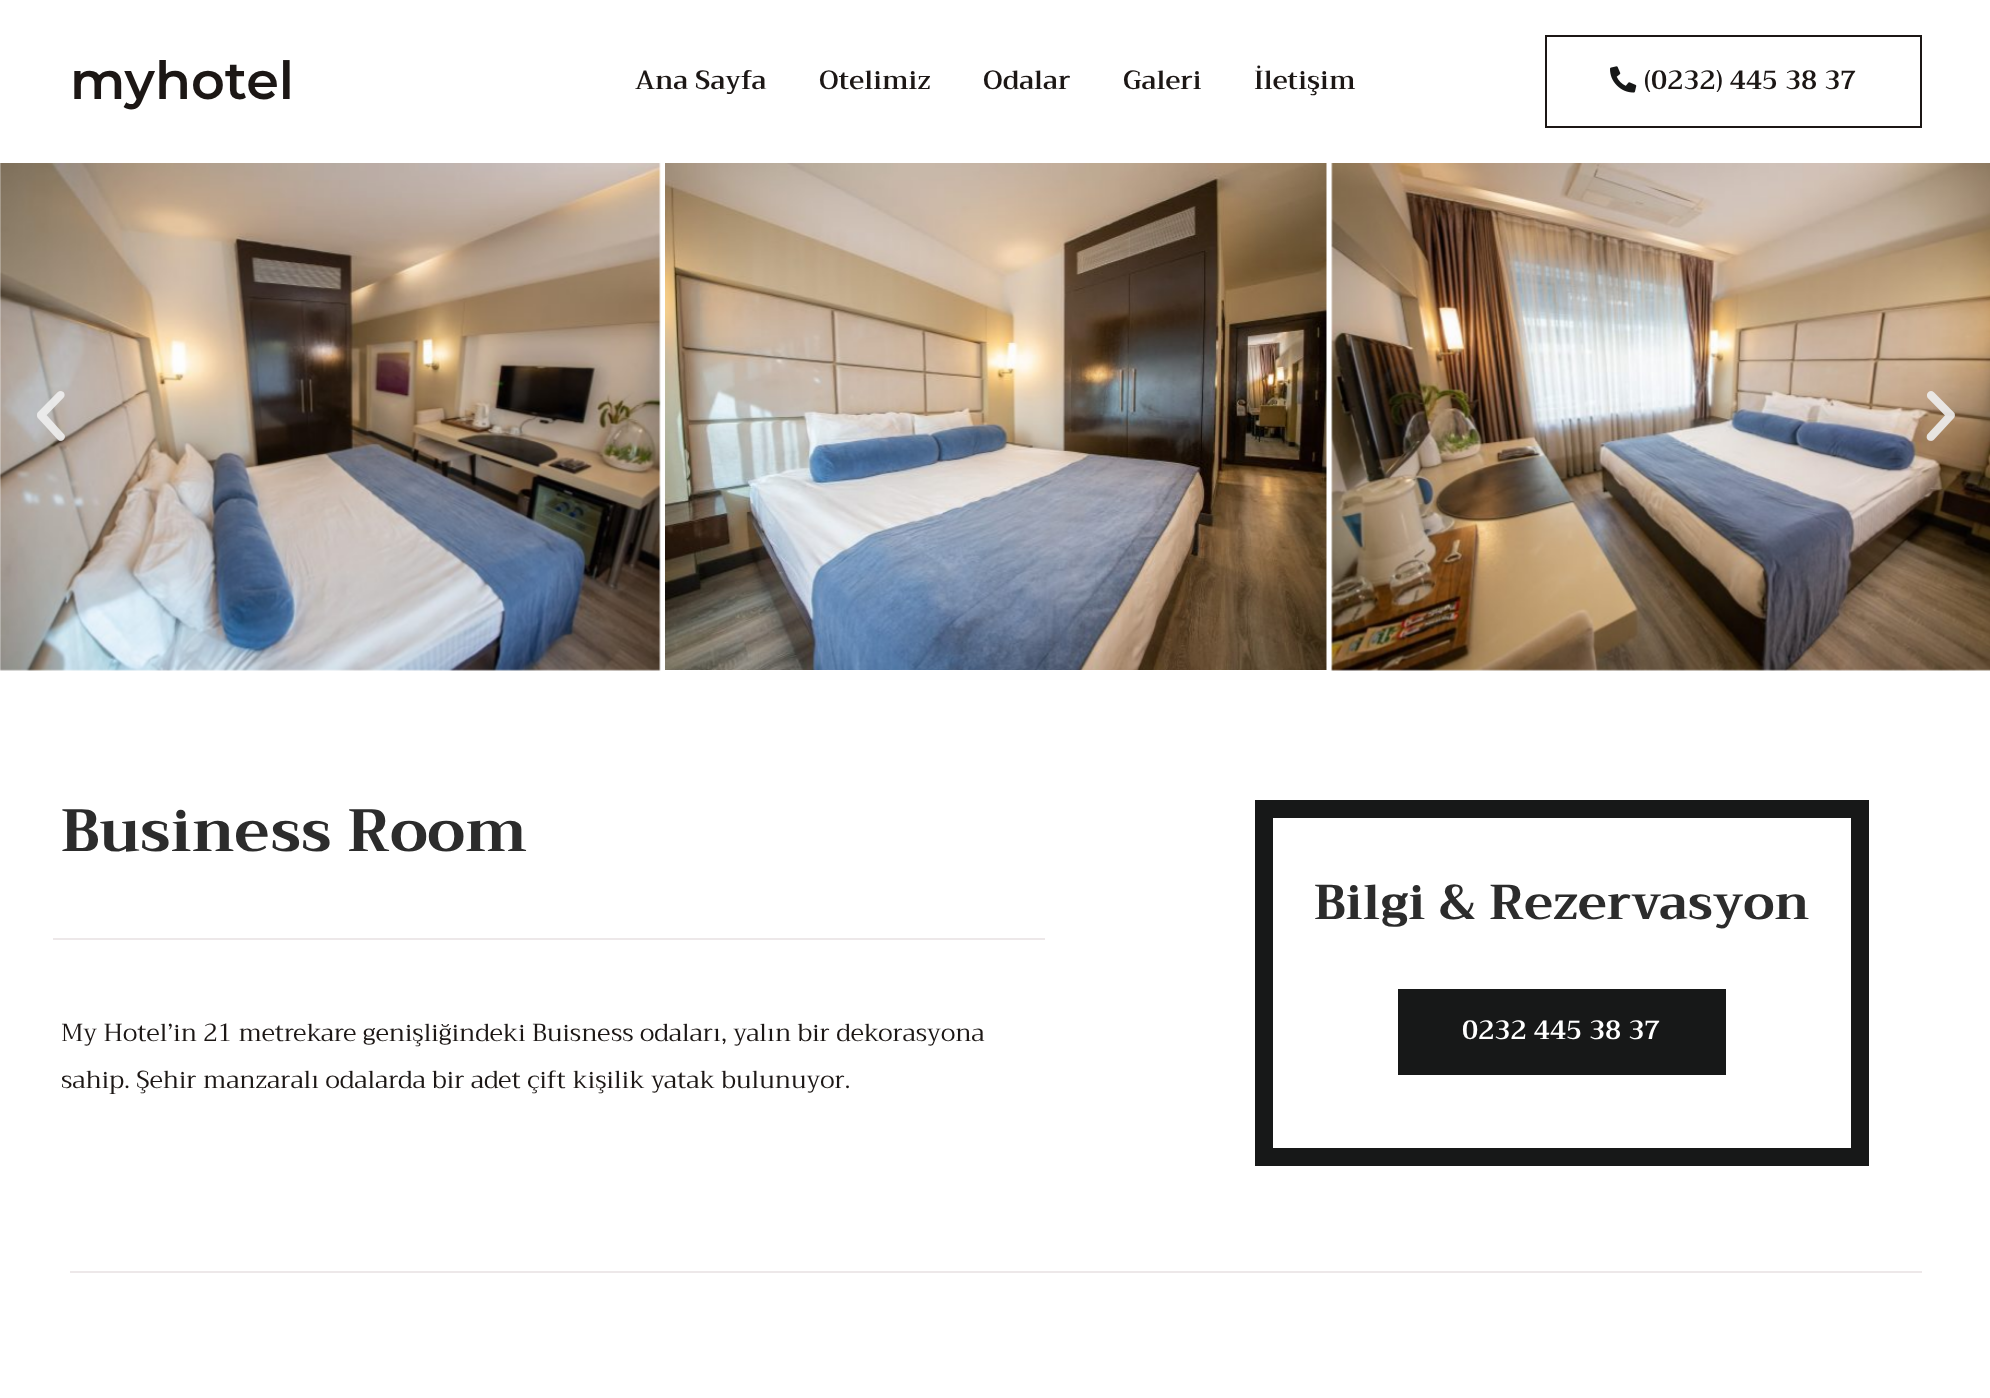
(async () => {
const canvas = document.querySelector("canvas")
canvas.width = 1990
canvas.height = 1398
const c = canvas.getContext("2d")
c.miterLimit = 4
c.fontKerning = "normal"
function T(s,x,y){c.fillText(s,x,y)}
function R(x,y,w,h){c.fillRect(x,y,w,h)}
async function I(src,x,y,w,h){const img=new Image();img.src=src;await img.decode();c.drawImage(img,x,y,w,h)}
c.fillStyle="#fff"
R(0,0,1990,1398)
c.font="600 52.5px Montserrat"
c.fillStyle="#1c1715"
T("myhotel",70,99)
c.font="600 26.25px Trirong"
T("Ana Sayfa",635,89)
T("Otelimiz",819,89)
T("Odalar",983,89)
T("Galeri",1123,89)
T("İletişim",1254,89)
c.strokeStyle="#1c1715"
c.lineWidth=2
c.strokeRect(1546,36,375,91)
await I("1.png",1610,66,27,27)
T("(0232) 445 38 37",1644,89)
await I("2.png",0,163,661,508)
await I("3.png",665,163,662,507)
await I("4.png",1331,163,659,508)
await I("5.png",37,391,28,50)
await I("6.png",1926,391,29,50)
c.font="bold 59.5px Trirong"
c.fillStyle="#2c2c2c"
T("Business Room",61,851)
c.fillStyle="#ede8e9"
R(53,938,992,2)
c.font="24.5px Trirong"
c.fillStyle="#1c1715"
T("My Hotel’in 21 metrekare genişliğindeki Buisness odaları, yalın bir dekorasyona",61,1041)
T("sahip. Şehir manzaralı odalarda bir adet çift kişilik yatak bulunuyor.",61,1088)
c.strokeStyle="#171818"
c.lineWidth=18
c.strokeRect(1264,809,596,348)
c.font="bold 49px Trirong"
c.fillStyle="#2c2c2c"
T("Bilgi & Rezervasyon",1314,919)
c.fillStyle="#171818"
R(1398,989,328,86)
c.font="600 26.25px Trirong"
c.fillStyle="#fff"
T("0232 445 38 37",1462,1039)
c.fillStyle="#ede8e9"
R(70,1271,1852,2)
})()
